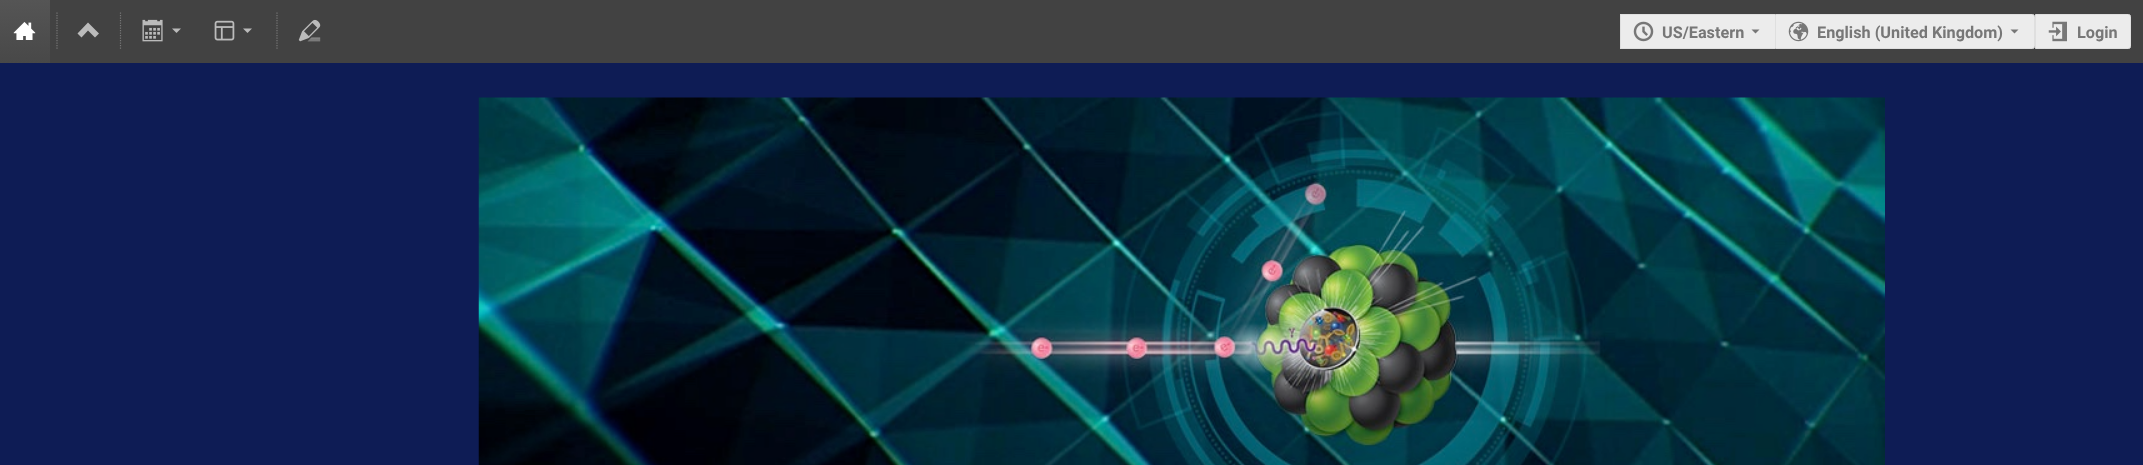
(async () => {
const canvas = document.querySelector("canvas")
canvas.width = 2143
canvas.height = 465
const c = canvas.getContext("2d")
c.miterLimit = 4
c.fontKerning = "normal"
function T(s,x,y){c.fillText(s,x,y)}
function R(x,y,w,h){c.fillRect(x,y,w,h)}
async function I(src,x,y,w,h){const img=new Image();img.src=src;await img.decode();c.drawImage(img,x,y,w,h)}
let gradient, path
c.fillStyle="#0e1c55"
R(0,0,2143,465)
c.fillStyle="#424242"
R(50,0,2093,63)
gradient = c.createLinearGradient(25,0,25,63)
gradient.addColorStop(0,"#555")
gradient.addColorStop(1,"#484848")
c.fillStyle = gradient
R(0,0,50,63)
await I("1.png",13,22,23,18)
path = new Path2D("M57 12.5v37.5")
c.strokeStyle="#777"
c.lineWidth=1.2
c.setLineDash([1.25,1.25])
c.stroke(path)
c.fillStyle="#bbb"
path = new Path2D("M77.5 33.5l4 4l6.5-7l7 7l4-4l-11-11z")
c.fill(path)
path = new Path2D("M120.5 12.5v37.5")
c.stroke(path)
await I("2.png",142,19,21,23)
path = new Path2D("M172 28.5l4.5 4.5l4.5-4.5z")
c.fill(path)
await I("3.png",214,20,21,21)
path = new Path2D("M243 28.5l4.5 4.5l4.5-4.5z")
c.fill(path)
path = new Path2D("M277 12.5v37.5")
c.stroke(path)
await I("4.png",298,19,23,23)
c.fillStyle="#ececec"
R(1621,15,154,33)
c.fillStyle="#dfdfdf"
R(1620,14,155,1)
R(1620,48,155,1)
R(1620,14,1,35)
await I("5.png",1633,21,21,21)
c.font="bold 16.25px Roboto"
c.fillStyle="#777"
T("US/Eastern",1662,38)
path = new Path2D("M1751.5 29.5l4 4l4-4z")
c.fill(path)
c.fillStyle="#ececec"
c.beginPath()
c.roundRect(1775.5,14.5,259,34,[0,2,2,0])
c.fill()
c.strokeStyle="#dfdfdf"
c.lineWidth=1
c.setLineDash([])
c.stroke()
await I("6.png",1788,21,21,21)
c.fillStyle="#777"
T("English (United Kingdom)",1817,38)
path = new Path2D("M2010.5 29.5l4 4l4-4z")
c.fill(path)
c.fillStyle="#ececec"
c.beginPath()
c.roundRect(2035.5,14.5,95,34,[0,2,2,0])
c.fill()
c.stroke()
await I("7.png",2048,21,19,21)
c.fillStyle="#777"
T("Login",2077,38)
await I("8.png",478,97,1407,368)
})()
